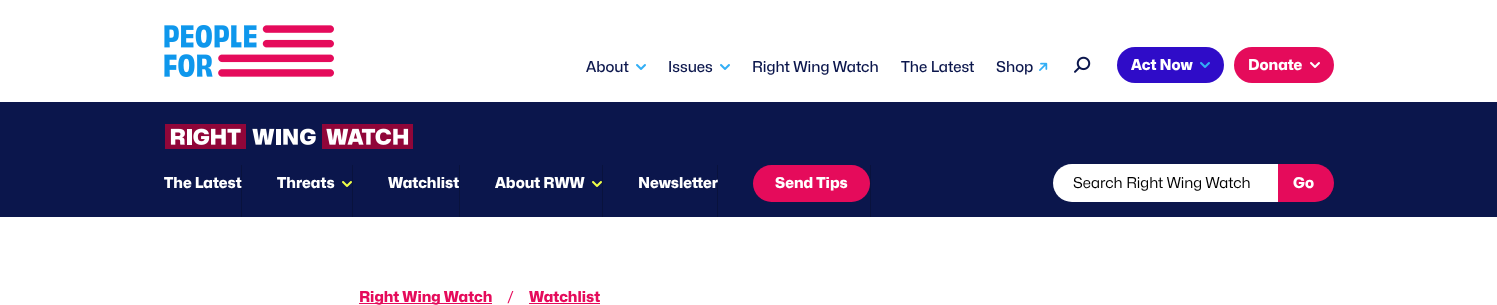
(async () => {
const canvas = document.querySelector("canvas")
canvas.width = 1497
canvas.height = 305
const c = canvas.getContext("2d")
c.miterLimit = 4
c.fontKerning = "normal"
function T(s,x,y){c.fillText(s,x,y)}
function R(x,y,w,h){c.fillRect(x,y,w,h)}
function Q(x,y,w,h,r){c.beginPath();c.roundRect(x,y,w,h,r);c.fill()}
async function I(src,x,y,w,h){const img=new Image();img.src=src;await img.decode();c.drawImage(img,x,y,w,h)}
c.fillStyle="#fff"
R(0,0,1497,305)
await I("1.png",164,25,170,52)
c.font="500 15px Mona Sans"
c.fillStyle="#0b164c"
T("About",586,72)
await I("2.png",636,64,10,6)
T("Issues",668,72)
await I("2.png",720,64,10,6)
T("Right Wing Watch",752,72)
T("The Latest",901,72)
T("Shop",996,72)
await I("3.png",1039,62,9,9)
await I("4.png",1074,56,17,17)
c.fillStyle="#2f0cc8"
Q(1117,47,107,36,18)
c.font="800 15px Mona Sans"
c.fillStyle="#fff"
T("Act Now",1131,70)
await I("5.png",1200,62,10,6)
c.fillStyle="#e50b5b"
Q(1234,47,100,36,18)
c.fillStyle="#fff"
T("Donate",1248,70)
await I("6.png",1310,62,10,6)
c.fillStyle="#0b164c"
R(0,102,1497,115)
await I("7.png",165,124,248,25)
c.fillStyle="#09123d"
R(241,165,1,52)
c.fillStyle="#fff"
T("The Latest",164,188)
c.fillStyle="#09123d"
R(352,165,1,52)
c.fillStyle="#fff"
T("Threats",277,188)
await I("8.png",342,181,10,6)
c.fillStyle="#09123d"
R(459,165,1,52)
c.fillStyle="#fff"
T("Watchlist",388,188)
c.fillStyle="#09123d"
R(602,165,1,52)
c.fillStyle="#fff"
T("About RWW",495,188)
await I("8.png",592,181,10,6)
c.fillStyle="#09123d"
R(717,165,1,52)
c.fillStyle="#fff"
T("Newsletter",638,188)
c.fillStyle="#09123d"
R(870,165,1,52)
c.fillStyle="#e50b5b"
Q(753,165,117,37,18.5)
c.fillStyle="#fff"
T("Send Tips",775,188)
c.beginPath()
c.roundRect(1053,164,225,38,[19,0,0,19])
c.fill()
c.font="15px Mona Sans"
c.fillStyle="#000"
T("Search Right Wing Watch",1073,188)
c.fillStyle="#e50b5b"
c.beginPath()
c.roundRect(1278,164,56,38,[0,19,19,0])
c.fill()
c.font="800 15px Mona Sans"
c.fillStyle="#fff"
T("Go",1293,188)
c.fillStyle="#e50b5b"
R(359,303,133,1)
T("Right Wing Watch",359,302)
c.font="15px Mona Sans"
T("/",507,302)
c.font="800 15px Mona Sans"
T("Watchlist",529,302)
R(529,303,71,1)
})()
